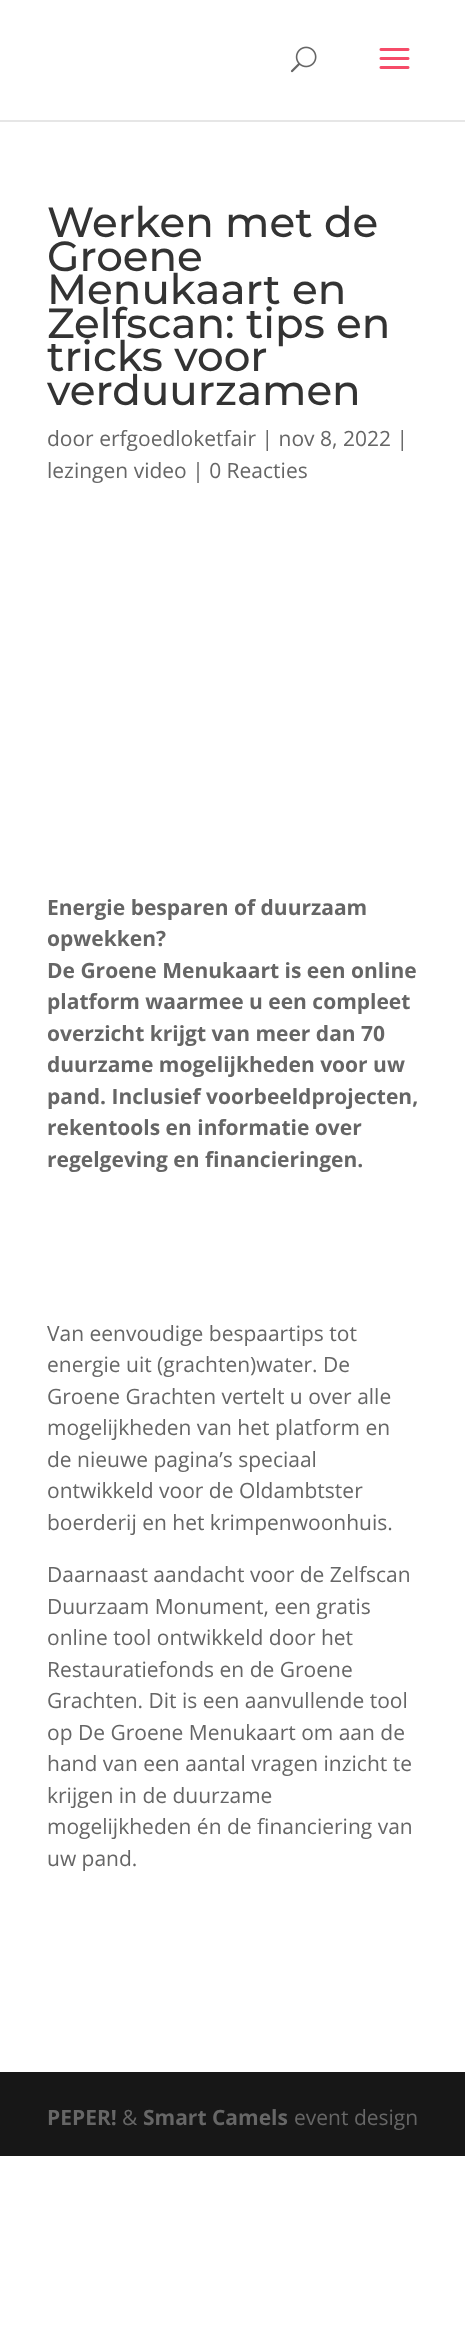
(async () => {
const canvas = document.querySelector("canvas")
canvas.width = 465
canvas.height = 2337
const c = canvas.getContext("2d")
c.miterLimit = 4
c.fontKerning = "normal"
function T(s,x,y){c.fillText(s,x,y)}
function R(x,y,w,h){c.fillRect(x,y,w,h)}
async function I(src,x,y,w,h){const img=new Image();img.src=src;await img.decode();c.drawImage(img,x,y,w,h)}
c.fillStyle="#fff"
R(0,0,465,2337)
c.fillStyle="#e6e6e6"
R(0,120,465,2)
await I("1.png",290,46,27,27)
await I("2.png",379,48,31,21)
c.font="500 42px Montserrat"
c.fillStyle="#333"
T("Werken met de",47,237)
T("Groene",47,271)
T("Menukaart en",47,304)
T("Zelfscan: tips en",47,338)
T("tricks voor",47,371)
T("verduurzamen",47,405)
c.font="21px Open Sans"
c.fillStyle="#666"
T("door erfgoedloketfair | nov 8, 2022 |",47,446)
T("lezingen video | 0 Reacties",47,478)
c.font="bold 21px Open Sans"
T("Energie besparen of duurzaam",47,915)
T("opwekken?",47,946)
T("De Groene Menukaart is een online",47,978)
T("platform waarmee u een compleet",47,1009)
T("overzicht krijgt van meer dan 70",47,1041)
T("duurzame mogelijkheden voor uw",47,1072)
T("pand. Inclusief voorbeeldprojecten,",47,1104)
T("rekentools en informatie over",47,1135)
T("regelgeving en financieringen.",47,1167)
c.font="21px Open Sans"
T("Van eenvoudige bespaartips tot",47,1341)
T("energie uit (grachten)water. De",47,1372)
T("Groene Grachten vertelt u over alle",47,1404)
T("mogelijkheden van het platform en",47,1435)
T("de nieuwe pagina’s speciaal",47,1467)
T("ontwikkeld voor de Oldambtster",47,1498)
T("boerderij en het krimpenwoonhuis.",47,1530)
T("Daarnaast aandacht voor de Zelfscan",47,1582)
T("Duurzaam Monument, een gratis",47,1614)
T("online tool ontwikkeld door het",47,1645)
T("Restauratiefonds en de Groene",47,1677)
T("Grachten. Dit is een aanvullende tool",47,1708)
T("op De Groene Menukaart om aan de",47,1740)
T("hand van een aantal vragen inzicht te",47,1771)
T("krijgen in de duurzame",47,1803)
T("mogelijkheden én de financiering van",47,1834)
T("uw pand.",47,1866)
c.fillStyle="#171717"
R(0,2072,465,84)
c.font="bold 21px Open Sans"
c.fillStyle="#666"
T("PEPER!",47,2125)
c.font="21px Open Sans"
T("&",122,2125)
c.font="bold 21px Open Sans"
T("Smart Camels",143,2125)
c.font="21px Open Sans"
T("event design",294,2125)
})()
